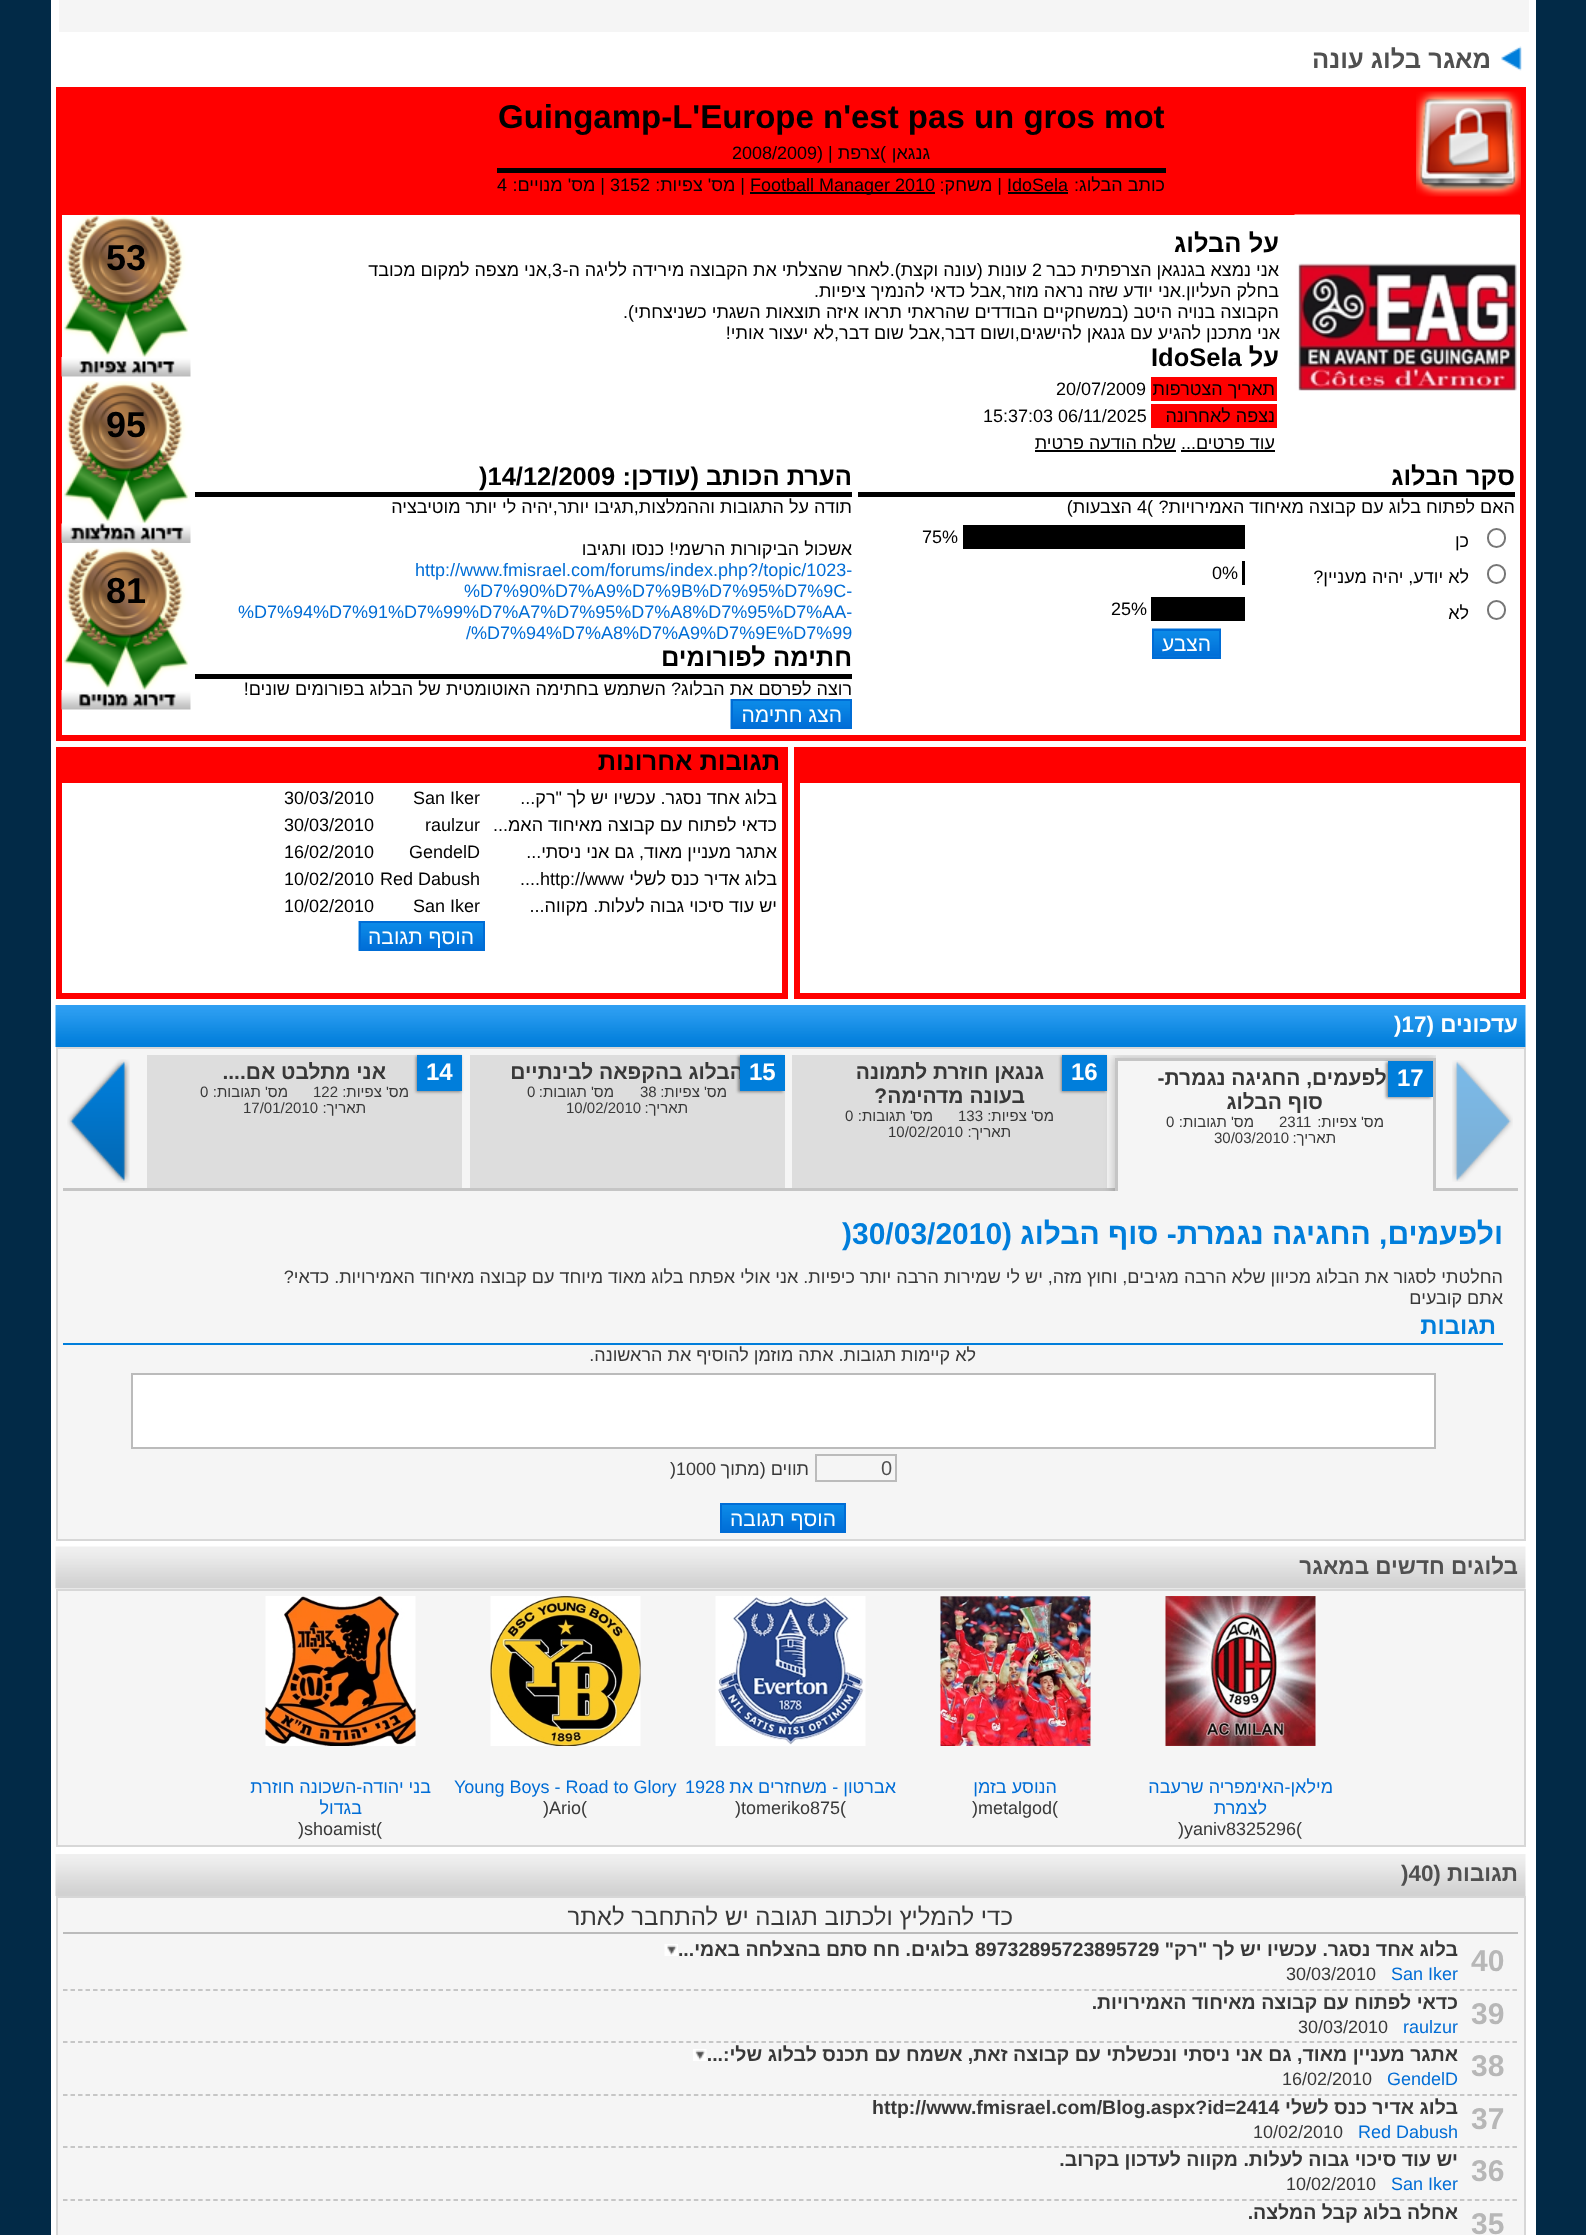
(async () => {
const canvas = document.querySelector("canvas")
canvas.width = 1586
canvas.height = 2235
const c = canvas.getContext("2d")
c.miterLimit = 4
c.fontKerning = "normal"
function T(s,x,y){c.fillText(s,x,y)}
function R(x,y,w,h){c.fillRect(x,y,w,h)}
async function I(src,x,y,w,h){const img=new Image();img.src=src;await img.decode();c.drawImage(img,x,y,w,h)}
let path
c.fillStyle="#022a47"
R(0,0,1586,2235)
c.fillStyle="#fff"
R(51,0,1485,2235)
c.fillStyle="#f5f5f5"
R(59,0,1470,32)
await I("1.png",1501,46,21,25)
c.direction="rtl"
c.font="bold 25.5px Liberation Sans"
c.fillStyle="#505050"
T("מאגר בלוג עונה",1491,68)
c.fillStyle="#f00"
R(56,87,1470,122)
await I("2.png",1416,91,105,106)
c.direction="ltr"
c.font="bold 33px Liberation Sans"
c.fillStyle="#000"
T("Guingamp-L'Europe n'est pas un gros mot",498,128)
c.direction="rtl"
c.font="18px Liberation Sans"
T("גנגאן",930,159)
c.direction="ltr"
T("(",880,159)
c.direction="rtl"
T("צרפת",880,159)
c.direction="ltr"
T(") |",817,159)
T("2008/2009",732,159)
R(497,168,669,5)
c.direction="rtl"
T("כותב הבלוג:",1165,191)
c.direction="ltr"
T("IdoSela",1007,191)
R(1008,192,60,2)
c.direction="rtl"
T("| משחק:",1002,191)
R(750,192,185,2)
c.direction="ltr"
T("Football Manager 2010",750,191)
c.direction="rtl"
T("| מס' צפיות:",745,191)
c.direction="ltr"
T("3152",610,191)
c.direction="rtl"
T("| מס' מנויים:",605,191)
c.direction="ltr"
T("4",497,191)
c.strokeStyle="#f00"
c.lineWidth=6
c.strokeRect(59,212,1464,526)
await I("3.png",1294,214,226,177)
c.direction="rtl"
c.font="bold 25.5px Liberation Sans"
T("על הבלוג",1279,252)
c.font="18px Liberation Sans"
T("אני נמצא בגנגאן הצרפתית כבר",1279,276)
c.direction="ltr"
T("2",1032,276)
c.direction="rtl"
T("עונות (עונה וקצת).לאחר שהצלתי את הקבוצה מירידה לליגה ה-",1027,276)
c.direction="ltr"
T("3",552,276)
c.direction="rtl"
T(",אני מצפה למקום מכובד",552,276)
T("בחלק העליון.אני יודע שזה נראה מוזר,אבל כדאי להנמיך ציפיות.",1279,297)
T("הקבוצה בנויה היטב (במשחקיים הבודדים שהראתי תראו איזה תוצאות השגתי כשניצחתי).",1279,318)
T("אני מתכנן להגיע עם גנגאן להישגים,ושום דבר,אבל שום דבר,לא יעצור אותי!",1280,339)
c.font="bold 25.5px Liberation Sans"
T("על",1279,366)
c.direction="ltr"
T("IdoSela",1151,366)
c.fillStyle="#f00"
R(1151,377,126,24)
c.direction="rtl"
c.font="18px Liberation Sans"
c.fillStyle="#000"
T("תאריך הצטרפות",1275,395)
c.direction="ltr"
T("20/07/2009",1056,395)
c.fillStyle="#f00"
R(1151,404,126,24)
c.direction="rtl"
c.fillStyle="#000"
T("נצפה לאחרונה",1275,422)
c.direction="ltr"
T("15:37:03 06/11/2025",983,422)
c.direction="rtl"
T("עוד פרטים...",1275,449)
R(1181,450,94,2)
T("שלח הודעה פרטית",1176,449)
R(1035,450,141,2)
R(858,492,657,5)
c.font="bold 25.5px Liberation Sans"
T("סקר הבלוג",1515,485)
c.font="18px Liberation Sans"
T("האם לפתוח בלוג עם קבוצה מאיחוד האמירויות?",1515,513)
c.direction="ltr"
T("(",1147,513)
T("4",1137,513)
c.direction="rtl"
T("הצבעות)",1132,513)
c.beginPath()
c.roundRect(1488,529,17,18,8.5)
c.strokeStyle="#767676"
c.lineWidth=2
c.stroke()
T("כן",1469,547)
R(963,525,282,24)
c.direction="ltr"
T("75%",922,543)
c.beginPath()
c.roundRect(1488,565,17,18,8.5)
c.stroke()
c.direction="rtl"
T("לא יודע, יהיה מעניין?",1469,583)
R(1242,561,3,24)
c.direction="ltr"
T("0%",1212,579)
c.beginPath()
c.roundRect(1488,601,17,18,8.5)
c.stroke()
c.direction="rtl"
T("לא",1469,619)
R(1151,597,94,24)
c.direction="ltr"
T("25%",1111,615)
await I("4.png",1152,628,69,29)
c.strokeStyle="#006dd6"
c.strokeRect(1153,630,67,28)
c.direction="rtl"
c.font="21px Liberation Sans"
c.fillStyle="#fff"
T("הצבע",1211,651)
c.fillStyle="#000"
R(195,492,657,5)
c.font="bold 25.5px Liberation Sans"
T("הערת הכותב (עודכן:",852,485)
c.direction="ltr"
T(")14/12/2009",479,485)
c.direction="rtl"
c.font="18px Liberation Sans"
T("תודה על התגובות וההמלצות,תגיבו יותר,יהיה לי יותר מוטיבציה",852,513)
T("אשכול הביקורות הרשמי! כנסו ותגיבו",852,555)
c.direction="ltr"
c.fillStyle="#006dd6"
T("http://www.fmisrael.com/forums/index.php?/topic/1023-",415,576)
T("%D7%90%D7%A9%D7%9B%D7%95%D7%9C-",464,597)
T("%D7%94%D7%91%D7%99%D7%A7%D7%95%D7%A8%D7%95%D7%AA-",238,618)
T("/%D7%94%D7%A8%D7%A9%D7%9E%D7%99",466,639)
c.fillStyle="#000"
R(195,674,657,5)
c.direction="rtl"
c.font="bold 25.5px Liberation Sans"
T("חתימה לפורומים",852,666)
c.font="18px Liberation Sans"
T("רוצה לפרסם את הבלוג? השתמש בחתימה האוטומטית של הבלוג בפורומים שונים!",852,695)
await I("5.png",730,699,120,30)
c.strokeRect(732,700,119,28)
c.font="21px Liberation Sans"
c.fillStyle="#fff"
T("הצג חתימה",842,722)
await I("6.png",61,214,129,143)
c.direction="ltr"
c.font="bold 36px Liberation Sans"
c.fillStyle="#000"
T("53",106,270)
await I("7.png",61,357,130,20)
await I("8.png",61,381,129,143)
T("95",106,437)
await I("9.png",61,523,130,20)
await I("10.png",61,547,129,143)
T("81",106,603)
await I("11.png",61,690,130,20)
c.fillStyle="#f00"
R(794,747,732,30)
c.strokeStyle="#f00"
c.lineWidth=6
c.strokeRect(797,780,726,216)
R(56,747,732,30)
c.direction="rtl"
c.font="bold 25.5px Liberation Sans"
c.fillStyle="#000"
T("תגובות אחרונות",780,770)
c.strokeRect(59,780,726,216)
c.font="18px Liberation Sans"
T("בלוג אחד נסגר. עכשיו יש לך \"רק...",777,804)
c.direction="ltr"
T("San Iker",413,804)
T("30/03/2010",284,804)
c.direction="rtl"
T("כדאי לפתוח עם קבוצה מאיחוד האמ...",777,831)
c.direction="ltr"
T("raulzur",425,831)
T("30/03/2010",284,831)
c.direction="rtl"
T("אתגר מעניין מאוד, גם אני ניסתי...",777,858)
c.direction="ltr"
T("GendelD",409,858)
T("16/02/2010",284,858)
c.direction="rtl"
T("בלוג אדיר כנס לשלי",777,885)
c.direction="ltr"
T("....http://www",520,885)
T("Red Dabush",380,885)
T("10/02/2010",284,885)
c.direction="rtl"
T("יש עוד סיכוי גבוה לעלות. מקווה...",777,912)
c.direction="ltr"
T("San Iker",413,912)
T("10/02/2010",284,912)
await I("12.png",358,921,125,30)
c.strokeStyle="#006dd6"
c.lineWidth=2
c.strokeRect(360,922,124,28)
c.direction="rtl"
c.font="21px Liberation Sans"
c.fillStyle="#fff"
T("הוסף תגובה",474,944)
await I("13.png",55,1005,1471,42)
c.font="bold 22.5px Liberation Sans"
T("עדכונים (",1518,1032)
c.direction="ltr"
T(")17",1394,1032)
c.fillStyle="#f5f5f5"
c.beginPath()
c.rect(57,1048,1468,492)
c.fill()
c.strokeStyle="#d7d7d7"
c.stroke()
await I("14.png",1452,1060,61,122)
c.fillStyle="#ddd"
R(792,1055,315,133)
c.fillStyle="#00000066"
c.filter="blur(1.5px)"
c.beginPath()
c.rect(1061,1056,45,36)
c.fill()
c.filter="none"
c.fillStyle="#007edb"
R(1062,1055,45,36)
c.fillStyle="#c5c5c5"
R(63,1188,1455,3)
c.save()
c.beginPath()
c.rect(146,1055,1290,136)
c.clip()
c.fillStyle="#00000033"
c.filter="blur(5px)"
c.beginPath()
c.rect(1113,1056,324,153)
c.fill()
c.filter="none"
c.restore()
c.fillStyle="#f5f5f5"
R(1118,1061,315,130)
c.save()
c.beginPath()
c.rect(146,1055,1290,136)
c.clip()
c.strokeStyle="#c5c5c5"
c.lineWidth=3
c.strokeRect(1116.5,1059.5,318,147)
c.restore()
c.fillStyle="#00000066"
c.filter="blur(1.5px)"
c.beginPath()
c.rect(1386,1062,45,36)
c.fill()
c.filter="none"
c.direction="rtl"
c.font="bold 21px Liberation Sans"
c.fillStyle="#383838"
T("ולפעמים, החגיגה נגמרת-",1393,1085)
c.fillStyle="#007edb"
R(1388,1061,45,36)
c.direction="ltr"
c.font="bold 24px Liberation Sans"
c.fillStyle="#fff"
T("17",1397,1086)
c.direction="rtl"
c.font="bold 21px Liberation Sans"
c.fillStyle="#383838"
T("סוף הבלוג",1323,1109)
c.font="15px Liberation Sans"
T("מס' צפיות:",1384,1127)
c.direction="ltr"
T("2311",1279,1127)
c.direction="rtl"
T("מס' תגובות:",1254,1127)
c.direction="ltr"
T("0",1166,1127)
c.direction="rtl"
T("תאריך:",1336,1143)
c.direction="ltr"
T("30/03/2010",1214,1143)
c.font="bold 24px Liberation Sans"
c.fillStyle="#fff"
T("16",1071,1080)
c.direction="rtl"
c.font="bold 21px Liberation Sans"
c.fillStyle="#383838"
T("גנגאן חוזרת לתמונה",1044,1079)
T("בעונה מדהימה?",1025,1103)
c.font="15px Liberation Sans"
T("מס' צפיות:",1054,1121)
c.direction="ltr"
T("133",958,1121)
c.direction="rtl"
T("מס' תגובות:",933,1121)
c.direction="ltr"
T("0",845,1121)
c.direction="rtl"
T("תאריך:",1011,1137)
c.direction="ltr"
T("10/02/2010",888,1137)
c.fillStyle="#ddd"
R(470,1055,315,133)
c.fillStyle="#00000066"
c.filter="blur(1.5px)"
c.beginPath()
c.rect(738,1056,45,36)
c.fill()
c.filter="none"
c.direction="rtl"
c.font="bold 21px Liberation Sans"
c.fillStyle="#383838"
T("הבלוג בהקפאה לבינתיים",744,1079)
c.fillStyle="#007edb"
R(740,1055,45,36)
c.direction="ltr"
c.font="bold 24px Liberation Sans"
c.fillStyle="#fff"
T("15",749,1080)
c.direction="rtl"
c.font="15px Liberation Sans"
c.fillStyle="#383838"
T("מס' צפיות:",727,1097)
c.direction="ltr"
T("38",640,1097)
c.direction="rtl"
T("מס' תגובות:",614,1097)
c.direction="ltr"
T("0",527,1097)
c.direction="rtl"
T("תאריך:",688,1113)
c.direction="ltr"
T("10/02/2010",566,1113)
c.fillStyle="#ddd"
R(147,1055,315,133)
c.fillStyle="#00000066"
c.filter="blur(1.5px)"
c.beginPath()
c.rect(416,1056,45,36)
c.fill()
c.filter="none"
c.fillStyle="#007edb"
R(417,1055,45,36)
c.font="bold 24px Liberation Sans"
c.fillStyle="#fff"
T("14",426,1080)
c.direction="rtl"
c.font="bold 21px Liberation Sans"
c.fillStyle="#383838"
T("אני מתלבט אם....",386,1079)
c.font="15px Liberation Sans"
T("מס' צפיות:",409,1097)
c.direction="ltr"
T("122",313,1097)
c.direction="rtl"
T("מס' תגובות:",288,1097)
c.direction="ltr"
T("0",200,1097)
c.direction="rtl"
T("תאריך:",366,1113)
c.direction="ltr"
T("17/01/2010",243,1113)
await I("15.png",67,1059,63,124)
c.direction="rtl"
c.font="bold 30px Liberation Sans"
c.fillStyle="#007edb"
T("ולפעמים, החגיגה נגמרת- סוף הבלוג (",1503,1244)
c.direction="ltr"
T(")30/03/2010",842,1244)
c.direction="rtl"
c.font="18px Liberation Sans"
c.fillStyle="#383838"
T("החלטתי לסגור את הבלוג מכיוון שלא הרבה מגיבים, וחוץ מזה, יש לי שמירות הרבה יותר כיפיות. אני אולי אפתח בלוג מאוד מיוחד עם קבוצה מאיחוד האמירויות. כדאי?",1503,1283)
T("אתם קובעים",1503,1304)
c.font="bold 24px Liberation Sans"
c.fillStyle="#007edb"
T("תגובות",1496,1334)
R(63,1343,1440,2)
c.font="18px Liberation Sans"
c.fillStyle="#383838"
T("לא קיימות תגובות. אתה מוזמן להוסיף את הראשונה.",976,1361)
c.fillStyle="#fff"
c.beginPath()
c.rect(132,1374,1303,74)
c.fill()
c.strokeStyle="#bbb"
c.stroke()
c.strokeRect(816,1455,80,26)
c.direction="ltr"
c.font="20px Liberation Sans"
c.fillStyle="#505050"
T("0",881,1475)
c.direction="rtl"
c.font="18px Liberation Sans"
c.fillStyle="#383838"
T("תווים (מתוך",809,1475)
c.direction="ltr"
T("1000",676,1475)
T(")",670,1475)
await I("16.png",722,1505,122,26)
c.strokeStyle="#006dd6"
c.strokeRect(721,1504,124,28)
c.direction="rtl"
c.font="21px Liberation Sans"
c.fillStyle="#fff"
T("הוסף תגובה",836,1526)
await I("17.png",55,1546,1471,43)
c.font="bold 22.5px Liberation Sans"
c.fillStyle="#505050"
T("בלוגים חדשים במאגר",1518,1574)
c.fillStyle="#f5f5f5"
c.beginPath()
c.rect(57,1590,1468,256)
c.fill()
c.strokeStyle="#d7d7d7"
c.stroke()
await I("18.png",1165,1596,151,150)
c.font="18px Liberation Sans"
c.fillStyle="#006dd6"
T("מילאן-האימפריה שרעבה",1333,1793)
T("לצמרת",1267,1814)
c.direction="ltr"
c.fillStyle="#383838"
T(")yaniv8325296(",1178,1835)
await I("19.png",940,1596,151,150)
c.direction="rtl"
c.fillStyle="#006dd6"
T("הנוסע בזמן",1057,1793)
c.direction="ltr"
c.fillStyle="#383838"
T(")metalgod(",972,1814)
await I("20.png",715,1596,151,150)
c.direction="rtl"
c.fillStyle="#006dd6"
T("אברטון - משחזרים את",896,1793)
c.direction="ltr"
T("1928",685,1793)
c.fillStyle="#383838"
T(")tomeriko875(",735,1814)
await I("21.png",490,1596,151,150)
c.fillStyle="#006dd6"
T("Young Boys - Road to Glory",454,1793)
c.fillStyle="#383838"
T(")Ario(",543,1814)
await I("22.png",265,1596,151,150)
c.direction="rtl"
c.fillStyle="#006dd6"
T("בני יהודה-השכונה חוזרת",431,1793)
T("בגדול",362,1814)
c.direction="ltr"
c.fillStyle="#383838"
T(")shoamist(",298,1835)
await I("23.png",55,1854,1471,42)
c.direction="rtl"
c.font="bold 22.5px Liberation Sans"
c.fillStyle="#505050"
T("תגובות (",1518,1881)
c.direction="ltr"
T(")40",1401,1881)
c.fillStyle="#f5f5f5"
c.beginPath()
c.rect(57,1897,1468,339)
c.fill()
c.stroke()
c.direction="rtl"
c.font="24px Liberation Sans"
c.fillStyle="#383838"
T("כדי להמליץ ולכתוב תגובה יש להתחבר לאתר",1013,1925)
c.fillStyle="#bbb"
R(63,1932,1455,2)
c.direction="ltr"
c.font="bold 30px Liberation Sans"
c.fillStyle="#b7b7b7"
T("40",1471,1971)
c.direction="rtl"
c.font="bold 19.5px Liberation Sans"
c.fillStyle="#383838"
T("בלוג אחד נסגר. עכשיו יש לך \"רק\"",1458,1956)
c.direction="ltr"
T("89732895723895729",975,1956)
c.direction="rtl"
T("בלוגים. חח סתם בהצלחה באמי...",969,1956)
await I("24.png",664,1944,14,12)
c.direction="ltr"
c.font="18px Liberation Sans"
c.fillStyle="#006dd6"
T("San Iker",1391,1980)
c.fillStyle="#383838"
T("30/03/2010",1286,1980)
path = new Path2D("M63 1990h1455")
c.strokeStyle="#b7b7b7"
c.lineWidth=1.5
c.setLineDash([4.5,3.01])
c.stroke(path)
c.font="bold 30px Liberation Sans"
c.fillStyle="#b7b7b7"
T("39",1471,2024)
c.direction="rtl"
c.font="bold 19.5px Liberation Sans"
c.fillStyle="#383838"
T("כדאי לפתוח עם קבוצה מאיחוד האמירויות.",1458,2009)
c.direction="ltr"
c.font="18px Liberation Sans"
c.fillStyle="#006dd6"
T("raulzur",1403,2033)
c.fillStyle="#383838"
T("30/03/2010",1298,2033)
path = new Path2D("M63 2042h1455")
c.stroke(path)
c.font="bold 30px Liberation Sans"
c.fillStyle="#b7b7b7"
T("38",1471,2076)
c.direction="rtl"
c.font="bold 19.5px Liberation Sans"
c.fillStyle="#383838"
T("אתגר מעניין מאוד, גם אני ניסתי ונכשלתי עם קבוצה זאת, אשמח עם תכנס לבלוג שלי:...",1458,2061)
await I("25.png",693,2049,14,12)
c.direction="ltr"
c.font="18px Liberation Sans"
c.fillStyle="#006dd6"
T("GendelD",1387,2085)
c.fillStyle="#383838"
T("16/02/2010",1282,2085)
path = new Path2D("M63 2095h1455")
c.stroke(path)
c.font="bold 30px Liberation Sans"
c.fillStyle="#b7b7b7"
T("37",1471,2129)
c.direction="rtl"
c.font="bold 19.5px Liberation Sans"
c.fillStyle="#383838"
T("בלוג אדיר כנס לשלי",1458,2114)
c.direction="ltr"
T("http://www.fmisrael.com/Blog.aspx?id=2414",872,2114)
c.font="18px Liberation Sans"
c.fillStyle="#006dd6"
T("Red Dabush",1358,2138)
c.fillStyle="#383838"
T("10/02/2010",1253,2138)
path = new Path2D("M63 2147h1455")
c.stroke(path)
c.font="bold 30px Liberation Sans"
c.fillStyle="#b7b7b7"
T("36",1471,2181)
c.direction="rtl"
c.font="bold 19.5px Liberation Sans"
c.fillStyle="#383838"
T("יש עוד סיכוי גבוה לעלות. מקווה לעדכון בקרוב.",1458,2166)
c.direction="ltr"
c.font="18px Liberation Sans"
c.fillStyle="#006dd6"
T("San Iker",1391,2190)
c.fillStyle="#383838"
T("10/02/2010",1286,2190)
path = new Path2D("M63 2200h1455")
c.stroke(path)
c.font="bold 30px Liberation Sans"
c.fillStyle="#b7b7b7"
T("35",1471,2234)
c.direction="rtl"
c.font="bold 19.5px Liberation Sans"
c.fillStyle="#383838"
T("אחלה בלוג קבל המלצה.",1458,2219)
})()
